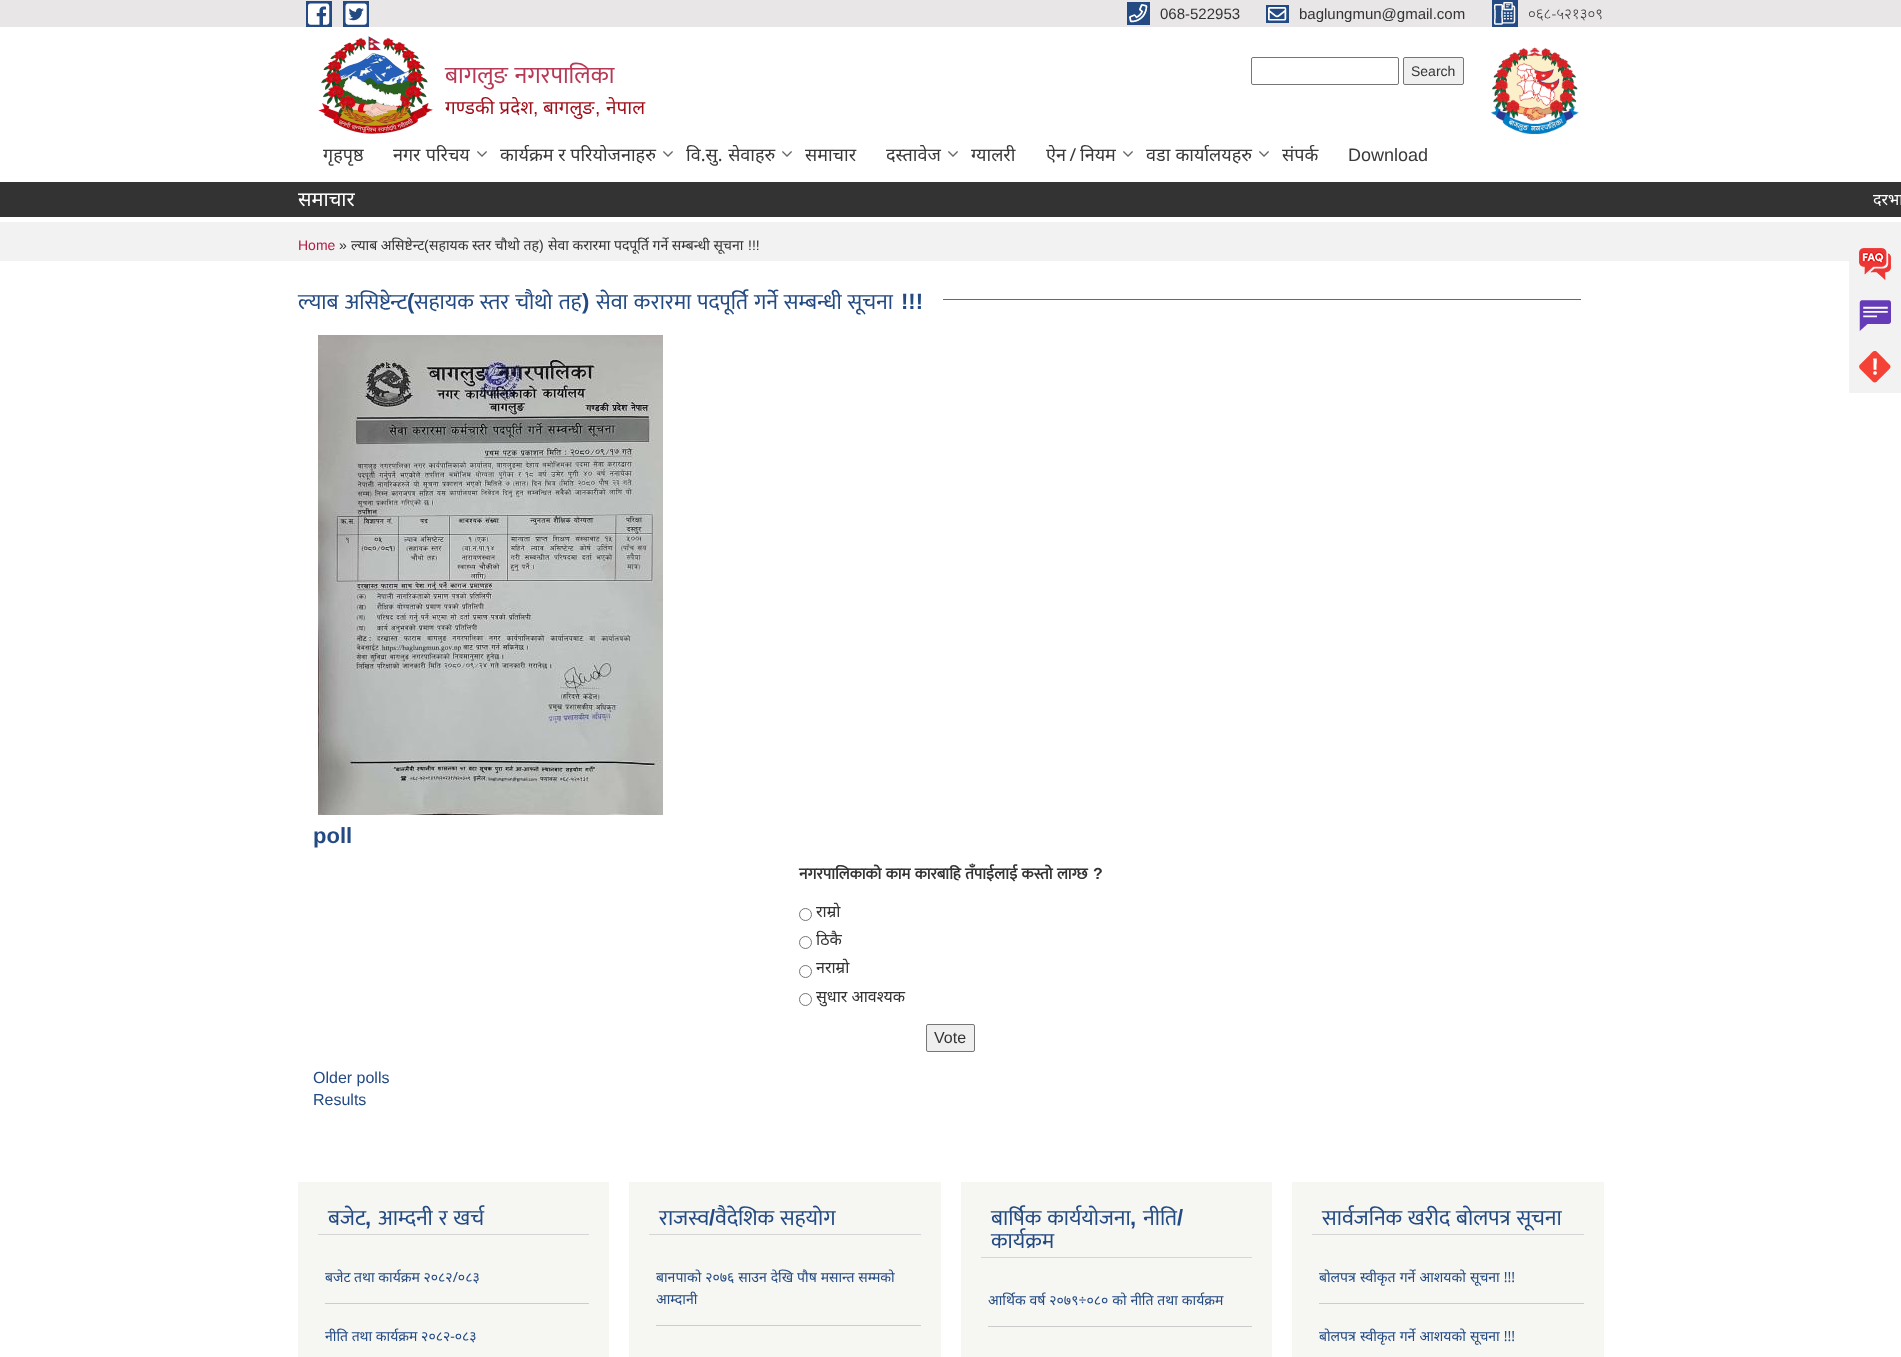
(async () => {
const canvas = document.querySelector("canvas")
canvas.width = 1901
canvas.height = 1357
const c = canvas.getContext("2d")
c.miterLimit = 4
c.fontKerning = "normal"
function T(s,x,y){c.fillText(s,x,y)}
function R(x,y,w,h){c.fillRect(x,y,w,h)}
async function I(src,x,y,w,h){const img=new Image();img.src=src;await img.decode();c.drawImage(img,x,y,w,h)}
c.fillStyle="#fff"
R(0,0,1901,1357)
c.fillStyle="#e8e6e6"
R(0,0,1901,27)
c.fillStyle="#234a83"
R(306,1,26,26)
R(343,1,26,26)
await I("1.png",308,3,22,22)
await I("2.png",345,3,22,22)
R(1127,2,23,23)
await I("3.png",1129,4,19,19)
c.font="15px Liberation Sans"
c.fillStyle="#333"
T("068-522953",1160,19)
c.fillStyle="#234a83"
R(1266,5,23,18)
await I("4.png",1268,7,19,14)
c.fillStyle="#333"
T("baglungmun@gmail.com",1299,19)
c.fillStyle="#234a83"
R(1492,0,26,27)
await I("5.png",1494,2,22,23)
c.font="300 15px Noto Sans"
c.fillStyle="#333"
T("०६८-५२१३०९",1528,19)
await I("6.png",318,36,115,98)
c.wordSpacing="1px"
c.font="24px Mukta"
c.fillStyle="#b83955"
T("बागलुङ नगरपालिका",445,83)
c.wordSpacing="0px"
c.font="19px Noto Sans"
c.fillStyle="#9e0c18"
T("गण्डकी प्रदेश",445,114)
c.font="19px Liberation Sans"
T(",",533,114)
c.font="19px Noto Sans"
T("बागलुङ",543,114)
c.font="19px Liberation Sans"
T(",",595,114)
c.font="19px Noto Sans"
T("नेपाल",606,114)
c.beginPath()
c.roundRect(1251.5,57.5,147,27,1.5)
c.strokeStyle="#767676"
c.stroke()
c.fillStyle="#efefef"
c.beginPath()
c.roundRect(1403.5,57.5,60,27,1.5)
c.fill()
c.stroke()
c.font="14px Liberation Sans"
c.fillStyle="#333"
T("Search",1411,76)
await I("7.png",1491,47,88,88)
c.font="18px Noto Sans"
c.fillStyle="#393939"
T("गृहपृष्ठ",323,161)
c.wordSpacing="0.5px"
T("नगर परिचय",393,161)
await I("8.png",477,151,10,6)
c.wordSpacing="0px"
T("कार्यक्रम र परियोजनाहरु",500,161)
await I("8.png",663,151,10,6)
c.wordSpacing="1px"
T("वि.सु. सेवाहरु",686,161)
await I("8.png",782,151,10,6)
c.wordSpacing="0px"
T("समाचार",805,161)
T("दस्तावेज",886,161)
await I("8.png",948,151,10,6)
T("ग्यालरी",971,161)
c.wordSpacing="-1px"
T("ऐन / नियम",1046,161)
await I("8.png",1123,151,10,6)
c.wordSpacing="0.5px"
T("वडा कार्यालयहरु",1146,161)
await I("8.png",1259,151,10,6)
c.wordSpacing="0px"
T("संपर्क",1282,161)
c.font="18px Liberation Sans"
T("Download",1348,161)
c.fillStyle="#333"
R(0,182,1901,35)
c.font="20px Noto Sans"
c.fillStyle="#fff"
T("समाचार",298,206)
c.font="16px Noto Sans"
T("दरभा",1873,205)
c.fillStyle="#f2f2f2"
R(0,222,1901,39)
c.font="14px Liberation Sans"
c.fillStyle="#b21c42"
T("Home",298,250)
c.fillStyle="#333"
T("»",339,250)
c.font="14px Noto Sans"
T("ल्याब असिष्टेन्ट",351,250)
c.font="14px Liberation Sans"
T("(",424,250)
c.font="14px Noto Sans"
T("सहायक स्तर चौथो तह",429,250)
c.font="14px Liberation Sans"
T(")",539,250)
c.font="14px Noto Sans"
T("सेवा करारमा पदपूर्ति गर्ने सम्बन्धी सूचना",548,250)
c.font="14px Liberation Sans"
T("!!!",748,250)
c.wordSpacing="1px"
c.font="22px Mukta"
c.fillStyle="#234a83"
T("ल्याब असिष्टेन्ट",298,309)
c.wordSpacing="0px"
c.font="bold 22px Liberation Sans"
T("(",407,309)
c.wordSpacing="1px"
c.font="22px Mukta"
T("सहायक स्तर चौथो तह",414,309)
c.wordSpacing="0px"
c.font="bold 22px Liberation Sans"
T(")",582,309)
c.wordSpacing="1px"
c.font="22px Mukta"
T("सेवा करारमा पदपूर्ति गर्ने सम्बन्धी सूचना",596,309)
c.wordSpacing="0px"
c.font="bold 22px Liberation Sans"
T("!!!",901,309)
c.fillStyle="#376fc2"
R(943,299,638,1)
await I("9.png",318,335,345,480)
c.fillStyle="#234a83"
T("poll",313,843)
c.wordSpacing="0.75px"
c.font="bold 16px Mukta"
c.fillStyle="#333"
T("नगरपालिकाको काम कारबाहि तँपाईलाई कस्तो लाग्छ",799,879)
c.wordSpacing="0px"
c.font="bold 16px Liberation Sans"
T("?",1093,879)
c.beginPath()
c.arc(805.5,914.5,6,0,7)
c.stroke()
c.font="16px Noto Sans"
T("राम्रो",816,917)
c.beginPath()
c.arc(805.5,942.5,6,0,7)
c.stroke()
T("ठिकै",816,945)
c.beginPath()
c.arc(805.5,971.5,6,0,7)
c.stroke()
T("नराम्रो",816,973)
c.beginPath()
c.arc(805.5,999.5,6,0,7)
c.stroke()
T("सुधार आवश्यक",816,1002)
c.fillStyle="#efefef"
c.beginPath()
c.roundRect(926.5,1024.5,48,27,1.5)
c.fill()
c.stroke()
c.font="16px Liberation Sans"
c.fillStyle="#333"
T("Vote",934,1043)
c.fillStyle="#234a83"
T("Older polls",313,1083)
T("Results",313,1105)
c.fillStyle="#f6f6f2"
R(298,1182,311,175)
c.fillStyle="#d6d6d6"
R(318,1234,271,1)
c.font="22px Mukta"
c.fillStyle="#234a83"
T("बजेट",328,1225)
c.font="bold 22px Liberation Sans"
T(",",365,1225)
c.wordSpacing="1px"
c.font="22px Mukta"
T("आम्दनी र खर्च",378,1225)
c.fillStyle="#ccc"
R(325,1303,264,1)
c.wordSpacing="0px"
c.font="14px Noto Sans"
c.fillStyle="#234a83"
T("बजेट तथा कार्यक्रम २०८२/०८३",325,1282)
T("नीति तथा कार्यक्रम २०८२-०८३",325,1341)
c.fillStyle="#f6f6f2"
R(629,1182,312,175)
c.fillStyle="#d6d6d6"
R(649,1234,272,1)
c.font="22px Mukta"
c.fillStyle="#234a83"
T("राजस्व",659,1225)
c.font="bold 22px Liberation Sans"
T("/",709,1225)
c.wordSpacing="1px"
c.font="22px Mukta"
T("वैदेशिक सहयोग",715,1225)
c.fillStyle="#ccc"
R(656,1325,265,1)
c.wordSpacing="0.25px"
c.font="14px Noto Sans"
c.fillStyle="#234a83"
T("बानपाको २०७६ साउन देखि पौष मसान्त सम्मको",656,1282)
c.wordSpacing="0px"
T("आम्दानी",656,1304)
c.fillStyle="#f6f6f2"
R(961,1182,311,175)
c.fillStyle="#d6d6d6"
R(981,1257,271,1)
c.wordSpacing="1px"
c.font="22px Mukta"
c.fillStyle="#234a83"
T("बार्षिक कार्ययोजना",991,1225)
c.wordSpacing="0px"
c.font="bold 22px Liberation Sans"
T(",",1130,1225)
c.font="22px Mukta"
T("नीति",1143,1225)
c.font="bold 22px Liberation Sans"
T("/",1177,1225)
c.font="22px Mukta"
T("कार्यक्रम",991,1248)
c.fillStyle="#ccc"
R(988,1326,264,1)
c.wordSpacing="0.25px"
c.font="14px Noto Sans"
c.fillStyle="#234a83"
T("आर्थिक वर्ष २०७९÷०८० को नीति तथा कार्यक्रम",988,1305)
c.fillStyle="#f6f6f2"
R(1292,1182,312,175)
c.fillStyle="#d6d6d6"
R(1312,1234,272,1)
c.wordSpacing="1px"
c.font="22px Mukta"
c.fillStyle="#234a83"
T("सार्वजनिक खरीद बोलपत्र सूचना",1322,1225)
c.fillStyle="#ccc"
R(1319,1303,265,1)
c.wordSpacing="0.5px"
c.font="14px Noto Sans"
c.fillStyle="#234a83"
T("बाेलपत्र स्वीकृत गर्ने आशयको सूचना !!!",1319,1282)
T("बाेलपत्र स्वीकृत गर्ने आशयको सूचना !!!",1319,1341)
c.fillStyle="#f2f2f2"
R(1849,261,52,132)
await I("10.png",1859,248,32,32)
await I("11.png",1859,300,32,31)
await I("12.png",1859,351,32,32)
})()
